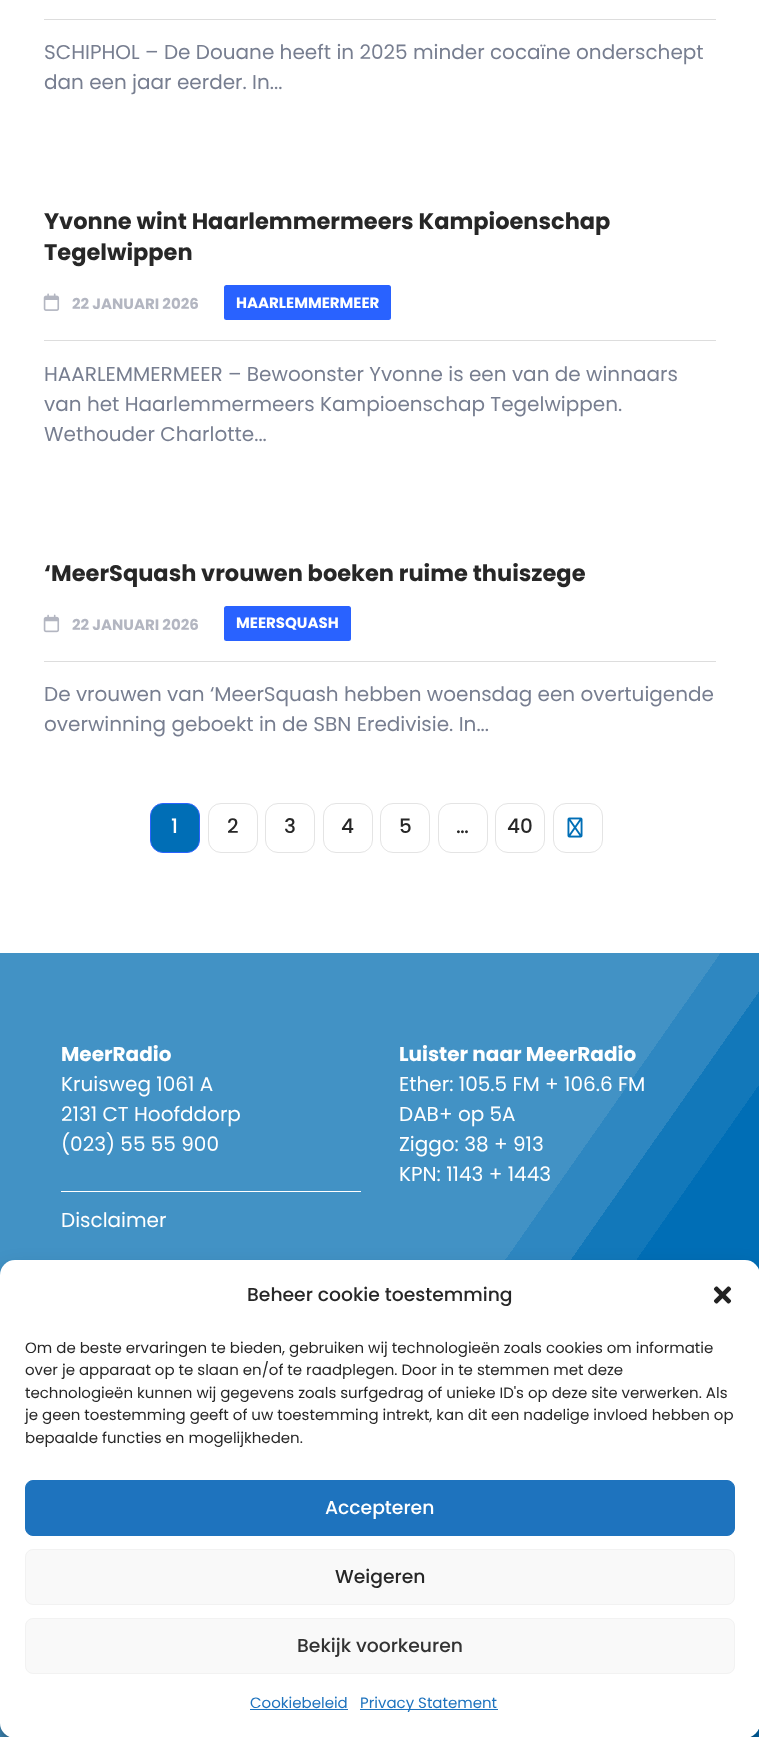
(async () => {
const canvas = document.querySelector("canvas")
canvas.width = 759
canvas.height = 1737
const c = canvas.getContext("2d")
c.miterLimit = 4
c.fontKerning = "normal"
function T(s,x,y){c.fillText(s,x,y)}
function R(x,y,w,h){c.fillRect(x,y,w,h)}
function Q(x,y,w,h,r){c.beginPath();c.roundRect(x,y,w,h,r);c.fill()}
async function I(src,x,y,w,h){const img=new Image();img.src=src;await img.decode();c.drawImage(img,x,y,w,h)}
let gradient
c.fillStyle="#fff"
R(0,0,759,1737)
c.fillStyle="#ddd"
R(44,19,672,1)
c.font="20px Poppins"
c.fillStyle="#777e90"
T("SCHIPHOL – De Douane heeft in 2025 minder cocaïne onderschept",44,59)
T("dan een jaar eerder. In...",44,89)
c.font="bold 22.5px Poppins"
c.fillStyle="#272727"
T("Yvonne wint Haarlemmermeers Kampioenschap",44,229)
T("Tegelwippen",44,260)
c.fillStyle="#ddd"
R(44,340,672,1)
await I("1.png",43,293,17,18)
c.font="bold 15px Poppins"
c.fillStyle="#b3b6c1"
T("22 JANUARI 2026",72,309)
c.fillStyle="#2962ff"
Q(224,285,167,35,2.5)
c.fillStyle="#fff"
T("HAARLEMMERMEER",236,308)
c.font="20px Poppins"
c.fillStyle="#777e90"
T("HAARLEMMERMEER – Bewoonster Yvonne is een van de winnaars",44,381)
T("van het Haarlemmermeers Kampioenschap Tegelwippen.",44,411)
T("Wethouder Charlotte...",44,441)
c.font="bold 22.5px Poppins"
c.fillStyle="#272727"
T("‘MeerSquash vrouwen boeken ruime thuiszege",44,581)
c.fillStyle="#ddd"
R(44,661,672,1)
await I("2.png",43,614,17,19)
c.font="bold 15px Poppins"
c.fillStyle="#b3b6c1"
T("22 JANUARI 2026",72,630)
c.fillStyle="#2962ff"
Q(224,606,127,35,2.5)
c.fillStyle="#fff"
T("MEERSQUASH",236,628)
c.font="20px Poppins"
c.fillStyle="#777e90"
T("De vrouwen van ‘MeerSquash hebben woensdag een overtuigende",44,701)
T("overwinning geboekt in de SBN Eredivisie. In...",44,731)
c.fillStyle="#006eb6"
c.beginPath()
c.roundRect(150.5,803.5,49,49,12.5)
c.fill()
c.strokeStyle="#2962ff"
c.stroke()
c.font="500 20px Poppins"
c.fillStyle="#fff"
T("1",171,833)
c.beginPath()
c.roundRect(208.5,803.5,49,49,12.5)
c.strokeStyle="#e4e4e4"
c.stroke()
c.fillStyle="#272727"
T("2",227,833)
c.beginPath()
c.roundRect(265.5,803.5,49,49,12.5)
c.stroke()
T("3",284,833)
c.beginPath()
c.roundRect(323.5,803.5,49,49,12.5)
c.stroke()
T("4",341,833)
c.beginPath()
c.roundRect(380.5,803.5,49,49,12.5)
c.stroke()
T("5",399,833)
c.beginPath()
c.roundRect(438.5,803.5,49,49,12.5)
c.stroke()
T("…",456,833)
c.beginPath()
c.roundRect(495.5,803.5,49,49,12.5)
c.stroke()
T("40",507,833)
c.beginPath()
c.roundRect(553.5,803.5,49,49,12.5)
c.stroke()
await I("3.png",567,817,16,21)
gradient = c.createLinearGradient(-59,1037,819,1653)
gradient.addColorStop(0,"#4292c5")
gradient.addColorStop(.55,"#4292c5")
gradient.addColorStop(.55,"#2e87c1")
gradient.addColorStop(.6,"#2e87c1")
gradient.addColorStop(.6,"#1278ba")
gradient.addColorStop(.65,"#1278ba")
gradient.addColorStop(.65,"#006eb6")
gradient.addColorStop(1,"#006eb6")
c.fillStyle = gradient
R(0,953,759,784)
c.font="bold 20px Poppins"
c.fillStyle="#fff"
T("MeerRadio",61,1061)
c.font="20px Poppins"
T("Kruisweg 1061 A",61,1091)
T("2131 CT Hoofddorp",61,1121)
T("(023) 55 55 900",61,1151)
R(61,1191,300,1)
T("Disclaimer",61,1227)
c.font="bold 20px Poppins"
T("Luister naar MeerRadio",399,1061)
c.font="20px Poppins"
T("Ether: 105.5 FM + 106.6 FM",399,1091)
T("DAB+ op 5A",399,1121)
T("Ziggo: 38 + 913",399,1151)
T("KPN: 1143 + 1443",399,1181)
c.fillStyle="#0000003b"
c.filter="blur(4px)"
c.beginPath()
c.roundRect(0,1268,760,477,15)
c.fill()
c.filter="none"
c.fillStyle="#00000030"
c.filter="blur(12.5px)"
c.beginPath()
c.roundRect(0,1273,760,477,15)
c.fill()
c.filter="none"
c.fillStyle="#fff"
Q(0,1260,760,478,15)
c.font="500 18.75px Poppins"
c.fillStyle="#272727"
T("Beheer cookie toestemming",247,1301)
await I("4.png",713,1286,19,18)
c.font="15px Poppins"
T("Om de beste ervaringen te bieden, gebruiken wij technologieën zoals cookies om informatie",25,1353)
T("over je apparaat op te slaan en/of te raadplegen. Door in te stemmen met deze",25,1375)
T("technologieën kunnen wij gegevens zoals surfgedrag of unieke ID's op deze site verwerken. Als",25,1398)
T("je geen toestemming geeft of uw toestemming intrekt, kan dit een nadelige invloed hebben op",25,1420)
T("bepaalde functies en mogelijkheden.",25,1443)
c.fillStyle="#1e73be"
c.beginPath()
c.roundRect(25.5,1480.5,709,55,7.5)
c.fill()
c.strokeStyle="#1e73be"
c.stroke()
c.font="500 18.75px Poppins"
c.fillStyle="#fff"
T("Accepteren",325,1514)
c.fillStyle="#f9f9f9"
c.beginPath()
c.roundRect(25.5,1549.5,709,55,7.5)
c.fill()
c.strokeStyle="#f2f2f2"
c.stroke()
c.fillStyle="#272727"
T("Weigeren",335,1583)
c.fillStyle="#f9f9f9"
c.beginPath()
c.roundRect(25.5,1618.5,709,55,7.5)
c.fill()
c.stroke()
c.fillStyle="#333"
T("Bekijk voorkeuren",297,1652)
c.font="15px Poppins"
c.fillStyle="#1e73be"
T("Cookiebeleid",250,1708)
R(250,1709,98,1)
R(360,1709,138,1)
T("Privacy Statement",360,1708)
})()
